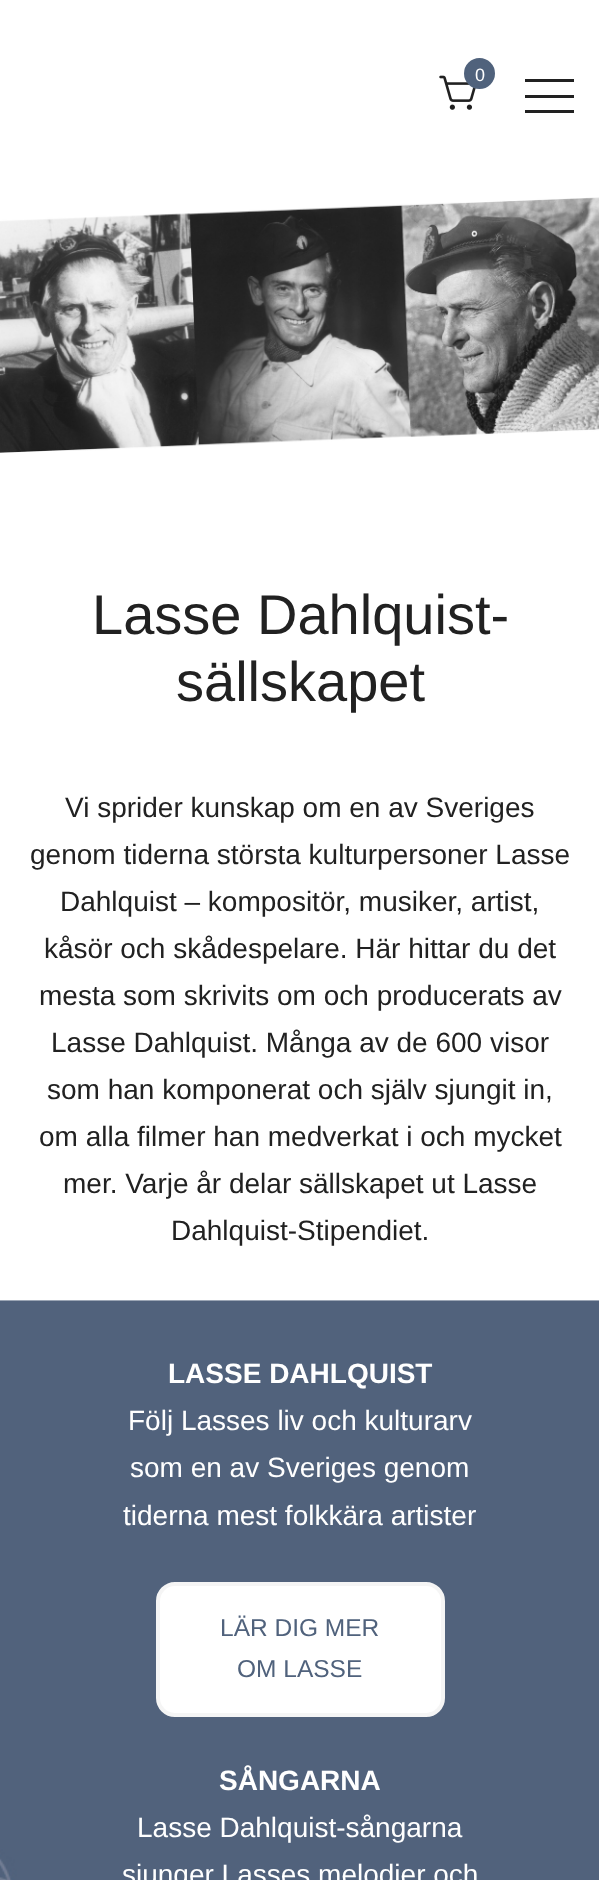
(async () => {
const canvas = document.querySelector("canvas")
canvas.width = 599
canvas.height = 1880
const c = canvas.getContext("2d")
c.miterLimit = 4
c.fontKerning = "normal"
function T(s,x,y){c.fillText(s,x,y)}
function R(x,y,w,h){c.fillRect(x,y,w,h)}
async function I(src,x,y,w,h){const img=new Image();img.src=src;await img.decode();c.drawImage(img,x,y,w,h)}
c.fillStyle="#fff"
R(0,0,599,1880)
await I("1.png",439,75,37,35)
c.fillStyle="#50627c"
c.beginPath()
c.arc(479.5,73.5,14.5,0,7)
c.fill()
c.strokeStyle="#50627c"
c.lineWidth=2
c.stroke()
c.font="18px Liberation Sans"
c.fillStyle="#fff"
T("0",475,81)
c.fillStyle="#212121"
R(525,79,49,3)
R(525,95,49,3)
R(525,110,49,3)
await I("2.png",0,197,599,256)
c.font="56px Liberation Sans"
T("Lasse Dahlquist-",92,634)
T("sällskapet",176,701)
c.font="28px Liberation Sans"
T("Vi sprider kunskap om en av Sveriges",65,817)
T("genom tiderna största kulturpersoner Lasse",30,864)
T("Dahlquist – kompositör, musiker, artist,",60,911)
T("kåsör och skådespelare. Här hittar du det",44,958)
T("mesta som skrivits om och producerats av",39,1005)
T("Lasse Dahlquist. Många av de 600 visor",51,1052)
T("som han komponerat och själv sjungit in,",47,1099)
T("om alla filmer han medverkat i och mycket",39,1146)
T("mer. Varje år delar sällskapet ut Lasse",63,1193)
T("Dahlquist-Stipendiet.",171,1240)
await I("3.png",0,1300,599,580)
c.font="bold 28px Liberation Sans"
c.fillStyle="#fff"
T("LASSE DAHLQUIST",168,1383)
c.font="28px Liberation Sans"
T("Följ Lasses liv och kulturarv",128,1430)
T("som en av Sveriges genom",130,1477)
T("tiderna mest folkkära artister",123,1525)
c.beginPath()
c.roundRect(158,1584,285,131,17)
c.fill()
c.strokeStyle="#f5f5f5"
c.lineWidth=4
c.stroke()
c.font="24.5px Liberation Sans"
c.fillStyle="#50627c"
T("LÄR DIG MER",220,1636)
T("OM LASSE",237,1677)
c.font="bold 28px Liberation Sans"
c.fillStyle="#fff"
T("SÅNGARNA",219,1790)
c.font="28px Liberation Sans"
T("Lasse Dahlquist-sångarna",137,1837)
T("sjunger Lasses melodier och",122,1884)
})()
